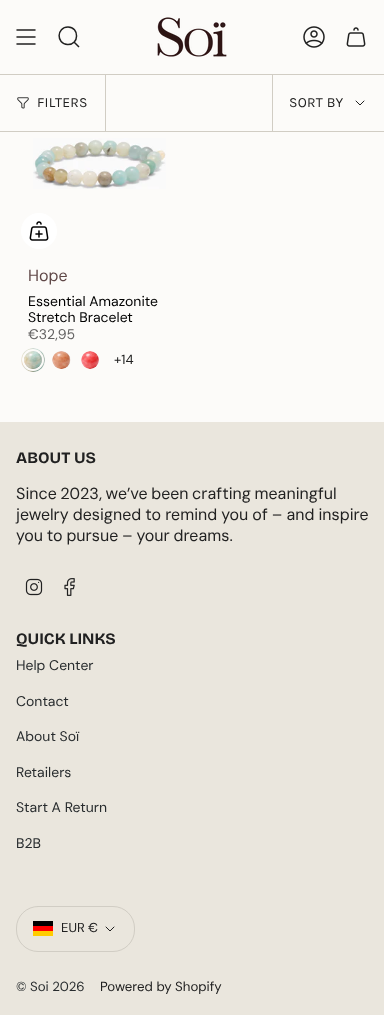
(async () => {
const canvas = document.querySelector("canvas")
canvas.width = 384
canvas.height = 1015
const c = canvas.getContext("2d")
c.miterLimit = 4
c.fontKerning = "normal"
function T(s,x,y){c.fillText(s,x,y)}
function R(x,y,w,h){c.fillRect(x,y,w,h)}
async function I(src,x,y,w,h){const img=new Image();img.src=src;await img.decode();c.drawImage(img,x,y,w,h)}
let path
c.fillStyle="#fcfbf9"
R(0,0,384,1015)
path = new Path2D("M17 30h18m-18 7h18m-18 7h18")
c.strokeStyle="#212121"
c.lineWidth=1.5
c.lineCap="round"
c.lineJoin="round"
c.stroke(path)
path = new Path2D("M68 27c11.5 0 11.5 18-.5 17.5c-11.5-.5-11-17.5 .5-17.5zm6 15l5 5")
c.lineCap="butt"
c.lineJoin="miter"
c.stroke(path)
await I("1.png",157,17,70,40)
await I("2.png",303,26,22,22)
await I("3.png",346,27,20,20)
c.fillStyle="#d1cdc4"
R(0,74,384,1)
R(0,131,384,1)
R(105,75,1,56)
await I("4.png",17,97,12,12)
c.letterSpacing="0.25px"
c.font="14px Karla"
c.fillStyle="#212121"
T("FILTERS",37,107)
c.fillStyle="#d1cdc4"
R(272,75,1,56)
c.fillStyle="#212121"
T("SORT BY",289,107)
path = new Path2D("M356 101l4 4l4-4")
c.lineWidth=1
c.lineCap="round"
c.lineJoin="round"
c.stroke(path)
await I("5.png",33,138,133,51)
c.fillStyle="#fff"
c.beginPath()
c.arc(39,231,18,0,7)
c.fill()
await I("6.png",29,221,20,20)
c.letterSpacing="0px"
c.font="16px DM Sans"
c.fillStyle="#5f4747"
T("Hope",28,281)
c.font="14px 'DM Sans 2'"
c.fillStyle="#000"
T("Essential Amazonite",28,306)
T("Stretch Bracelet",28,322)
c.fillStyle="#636262"
T("€32,95",28,339)
await I("8.png",21,348,24,24)
c.beginPath()
c.arc(33,360,10,0,7)
c.strokeStyle="#fcfbf9"
c.lineWidth=2
c.stroke()
await I("7.png",24,351,18,18)
await I("9.png",52,351,19,18)
await I("10.png",81,351,18,18)
c.font="13.25px 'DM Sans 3'"
c.fillStyle="#212121"
T("+14",114,364)
c.fillStyle="#eae6dd"
R(0,422,384,593)
c.font="bold 16px Bricolage Grotesque"
c.fillStyle="#212121"
T("ABOUT US",16,463)
c.wordSpacing="-0.75px"
c.font="16px DM Sans"
T("Since 2023, we’ve been crafting meaningful",16,499)
c.wordSpacing="-0.25px"
T("jewelry designed to remind you of – and inspire",16,520)
c.wordSpacing="-0.5px"
T("you to pursue – your dreams.",16,541)
await I("11.png",25,578,18,18)
await I("12.png",64,578,11,18)
c.wordSpacing="0px"
c.font="bold 16px Bricolage Grotesque"
T("QUICK LINKS",16,644)
c.font="14px 'DM Sans 2'"
c.fillStyle="#282c2e"
T("Help Center",16,670)
T("Contact",16,706)
T("About Soï",16,741)
T("Retailers",16,777)
T("Start A Return",16,812)
T("B2B",16,848)
c.beginPath()
c.roundRect(16.5,906.5,118,45,21.5)
c.strokeStyle="#d1cdc4"
c.lineWidth=1
c.lineJoin="miter"
c.stroke()
c.fillStyle="#fc0"
R(33,931,20,5)
c.fillStyle="#000"
R(33,921,20,5)
c.fillStyle="#f00"
R(33,926,20,5)
c.font="13px DM Sans"
c.fillStyle="#212121"
T("EUR",61,932)
c.font="13px 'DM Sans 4'"
T("€",88,932)
path = new Path2D("M106 927l4 4l4-4")
c.strokeStyle="#212121"
c.lineJoin="round"
c.stroke(path)
c.font="13.25px 'DM Sans 3'"
c.fillStyle="#282c2e"
T("© Soi 2026",16,991)
c.fillStyle="#212121"
T("Powered by Shopify",100,991)
})()
